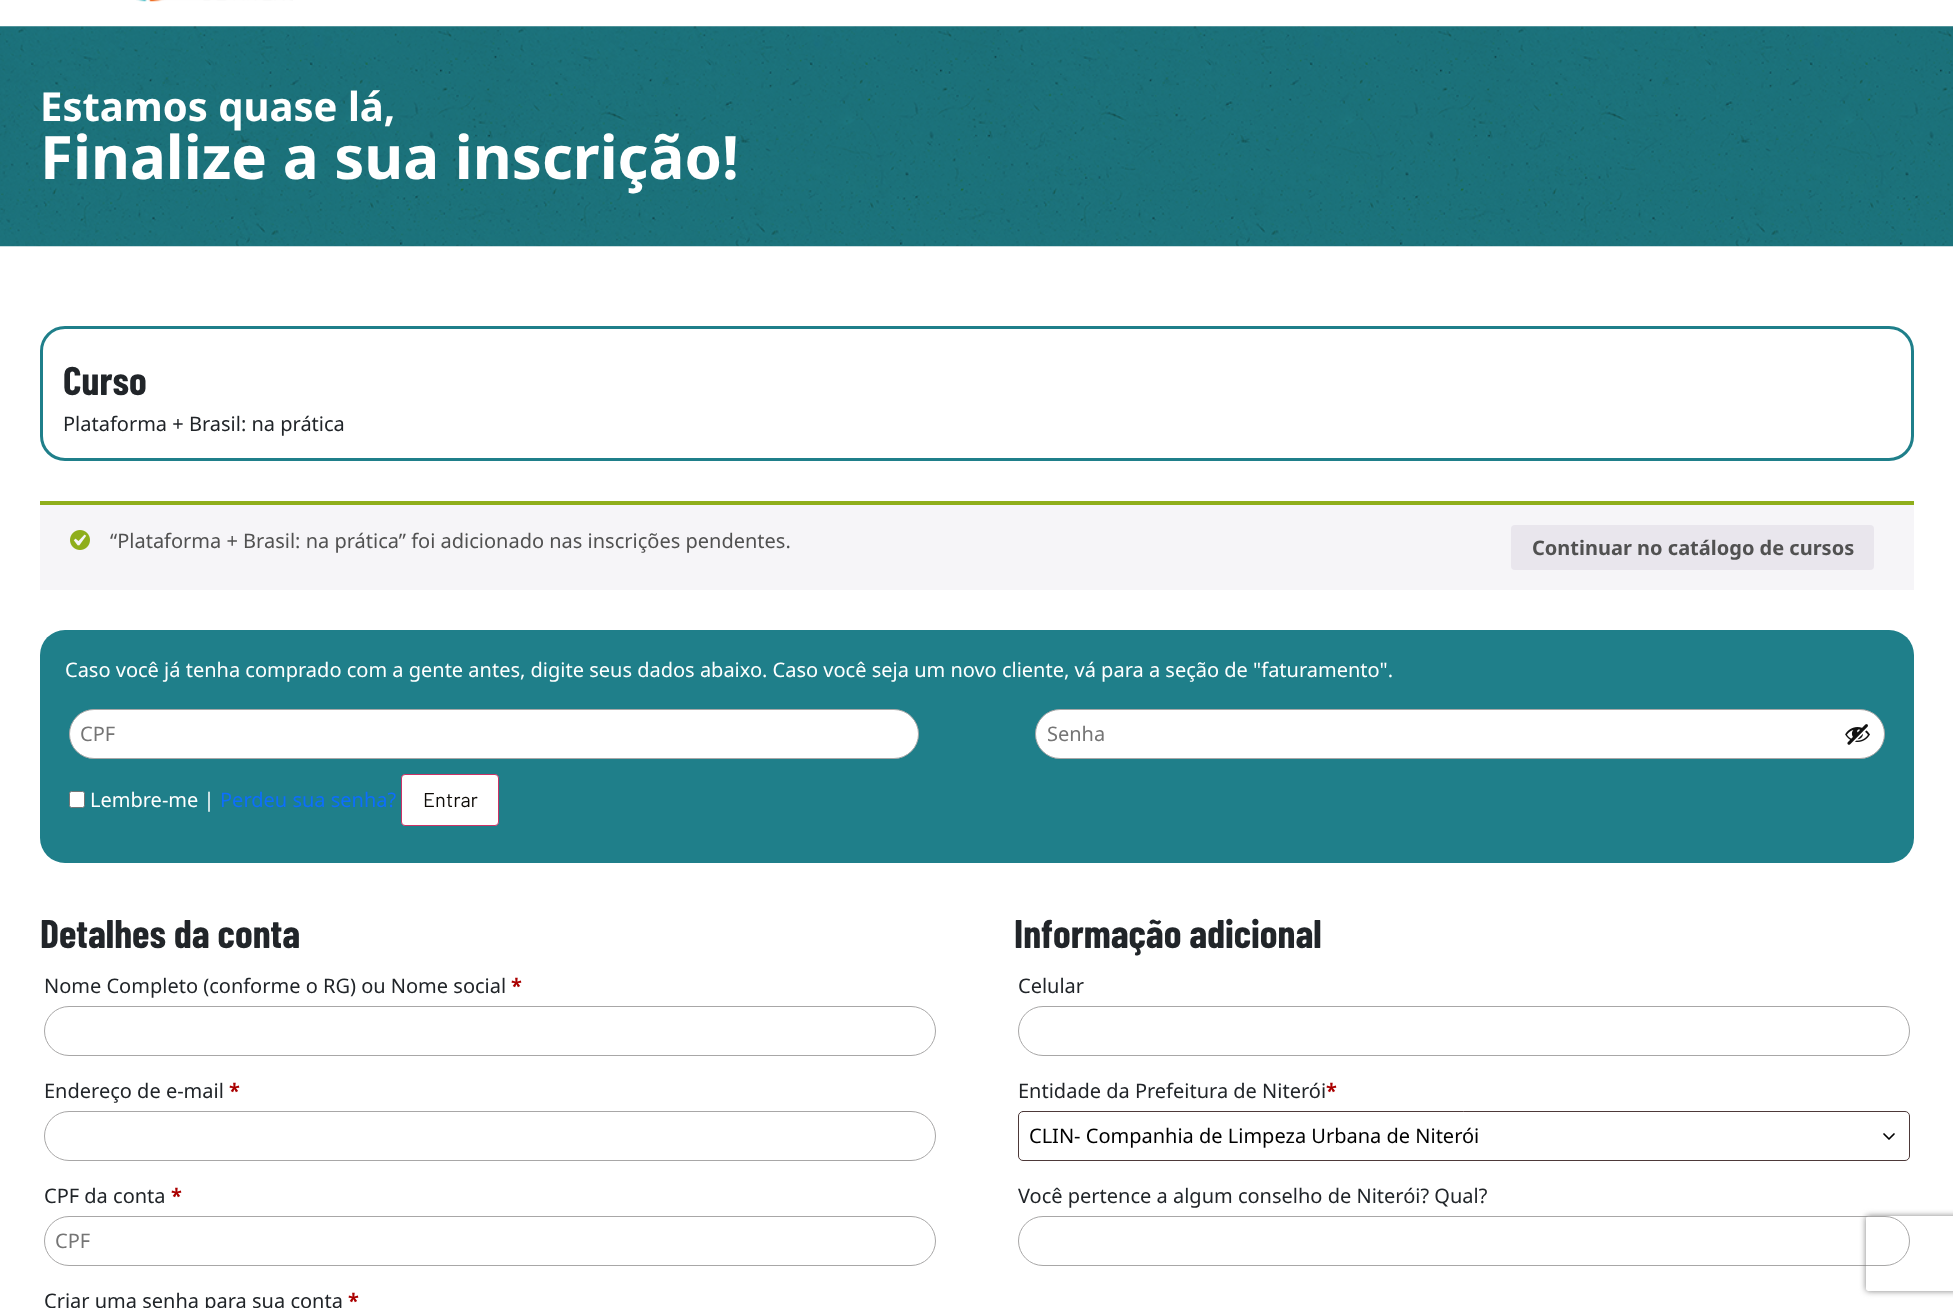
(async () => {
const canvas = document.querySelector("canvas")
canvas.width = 1953
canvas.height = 1308
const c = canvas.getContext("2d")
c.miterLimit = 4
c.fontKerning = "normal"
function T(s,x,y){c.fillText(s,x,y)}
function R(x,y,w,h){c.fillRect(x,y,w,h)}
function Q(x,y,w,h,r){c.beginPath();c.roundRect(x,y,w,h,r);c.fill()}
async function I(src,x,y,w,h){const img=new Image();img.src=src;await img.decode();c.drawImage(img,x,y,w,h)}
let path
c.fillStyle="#fff"
R(0,0,1953,1308)
await I("1.png",136,0,157,2)
await I("2.png",0,26,1953,221)
c.font="bold 40px Noto Sans"
T("Estamos quase lá,",40,121)
c.font="bold 60px Noto Sans"
T("Finalize a sua inscrição!",40,179)
c.beginPath()
c.roundRect(41.5,327.5,1871,132,23.5)
c.strokeStyle="#1f7f8a"
c.lineWidth=3
c.stroke()
c.font="bold 40px Barlow Condensed"
c.fillStyle="#212529"
T("Curso",63,395)
c.font="20px Noto Sans"
T("Plataforma + Brasil: na prática",63,431)
c.fillStyle="#f6f5f8"
R(40,505,1874,85)
c.fillStyle="#8fae1b"
R(40,501,1874,4)
await I("3.png",70,530,20,20)
c.fillStyle="#515151"
T("“Plataforma + Brasil: na prática” foi adicionado nas inscrições pendentes.",110,548)
c.fillStyle="#e9e6ed"
Q(1511,525,363,45,4)
c.font="bold 20px Noto Sans"
c.fillStyle="#515151"
T("Continuar no catálogo de cursos",1532,555)
c.fillStyle="#1f7f8a"
Q(40,630,1874,233,25)
c.font="20px Noto Sans"
c.fillStyle="#fff"
T("Caso você já tenha comprado com a gente antes, digite seus dados abaixo. Caso você seja um novo cliente, vá para a seção de \"faturamento\".",65,677)
c.beginPath()
c.roundRect(69.5,709.5,849,49,24.5)
c.fill()
c.strokeStyle="#a8a7a7"
c.lineWidth=1
c.stroke()
c.fillStyle="#757575"
T("CPF",80,741)
c.fillStyle="#fff"
c.beginPath()
c.roundRect(1035.5,709.5,849,49,24.5)
c.fill()
c.stroke()
c.fillStyle="#757575"
T("Senha",1047,741)
await I("4.png",1845,724,25,21)
c.fillStyle="#fff"
c.beginPath()
c.roundRect(69.5,791.5,15,16,2)
c.fill()
c.strokeStyle="#767676"
c.stroke()
T("Lembre-me |",90,807)
c.fillStyle="#0d6efd"
T("Perdeu sua senha?",220,807)
c.fillStyle="#fff"
c.beginPath()
c.roundRect(401.5,774.5,97,51,3.5)
c.fill()
c.strokeStyle="#c36"
c.stroke()
c.font="20px Barlow"
c.fillStyle="#0e0b07"
T("Entrar",423,807)
c.beginPath()
c.roundRect(1018.5,1216.5,891,49,24.5)
c.strokeStyle="#a8a7a7"
c.stroke()
c.save()
path = new Path2D("M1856 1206h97v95h-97zm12.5 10h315c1.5 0 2.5 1 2.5 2.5v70c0 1.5-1 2.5-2.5 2.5h-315c-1.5 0-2.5-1-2.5-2.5v-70c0-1.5 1-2.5 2.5-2.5z")
c.clip(path,"evenodd")
c.fillStyle="#808080"
c.filter="blur(3px)"
c.beginPath()
c.roundRect(1866,1216,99,75,2.5)
c.fill()
c.filter="none"
c.restore()
c.font="bold 40px Barlow Condensed"
c.fillStyle="#212529"
T("Detalhes da conta",40,948)
c.font="20px Noto Sans"
T("Nome Completo (conforme o RG) ou Nome social",44,993)
c.font="bold 20px Noto Sans"
c.fillStyle="#a00"
T("*",511,993)
c.beginPath()
c.roundRect(44.5,1006.5,891,49,24.5)
c.stroke()
c.font="20px Noto Sans"
c.fillStyle="#212529"
T("Endereço de e-mail",44,1098)
c.font="bold 20px Noto Sans"
c.fillStyle="#a00"
T("*",229,1098)
c.beginPath()
c.roundRect(44.5,1111.5,891,49,24.5)
c.stroke()
c.font="20px Noto Sans"
c.fillStyle="#212529"
T("CPF da conta",44,1203)
c.font="bold 20px Noto Sans"
c.fillStyle="#a00"
T("*",171,1203)
c.beginPath()
c.roundRect(44.5,1216.5,891,49,24.5)
c.stroke()
c.font="20px Noto Sans"
c.fillStyle="#757575"
T("CPF",55,1248)
c.fillStyle="#212529"
T("Criar uma senha para sua conta",44,1308)
c.font="bold 20px Noto Sans"
c.fillStyle="#a00"
T("*",348,1308)
c.font="bold 40px Barlow Condensed"
c.fillStyle="#212529"
T("Informação adicional",1014,948)
c.font="20px Noto Sans"
T("Celular",1018,993)
c.beginPath()
c.roundRect(1018.5,1006.5,891,49,24.5)
c.stroke()
T("Entidade da Prefeitura de Niterói",1018,1098)
c.font="bold 20px Noto Sans"
c.fillStyle="#a00"
T("*",1326,1098)
path = new Path2D("M1884 1134l5 5l5-5")
c.strokeStyle="#000"
c.lineWidth=1.7
c.lineCap="round"
c.lineJoin="round"
c.stroke(path)
c.beginPath()
c.roundRect(1018.5,1111.5,891,49,4.5)
c.strokeStyle="#4d3939"
c.lineWidth=1
c.lineJoin="miter"
c.stroke()
c.font="20px Noto Sans"
c.fillStyle="#000"
T("CLIN- Companhia de Limpeza Urbana de Niterói",1029,1143)
c.fillStyle="#212529"
T("Você pertence a algum conselho de Niterói? Qual?",1018,1203)
})()
